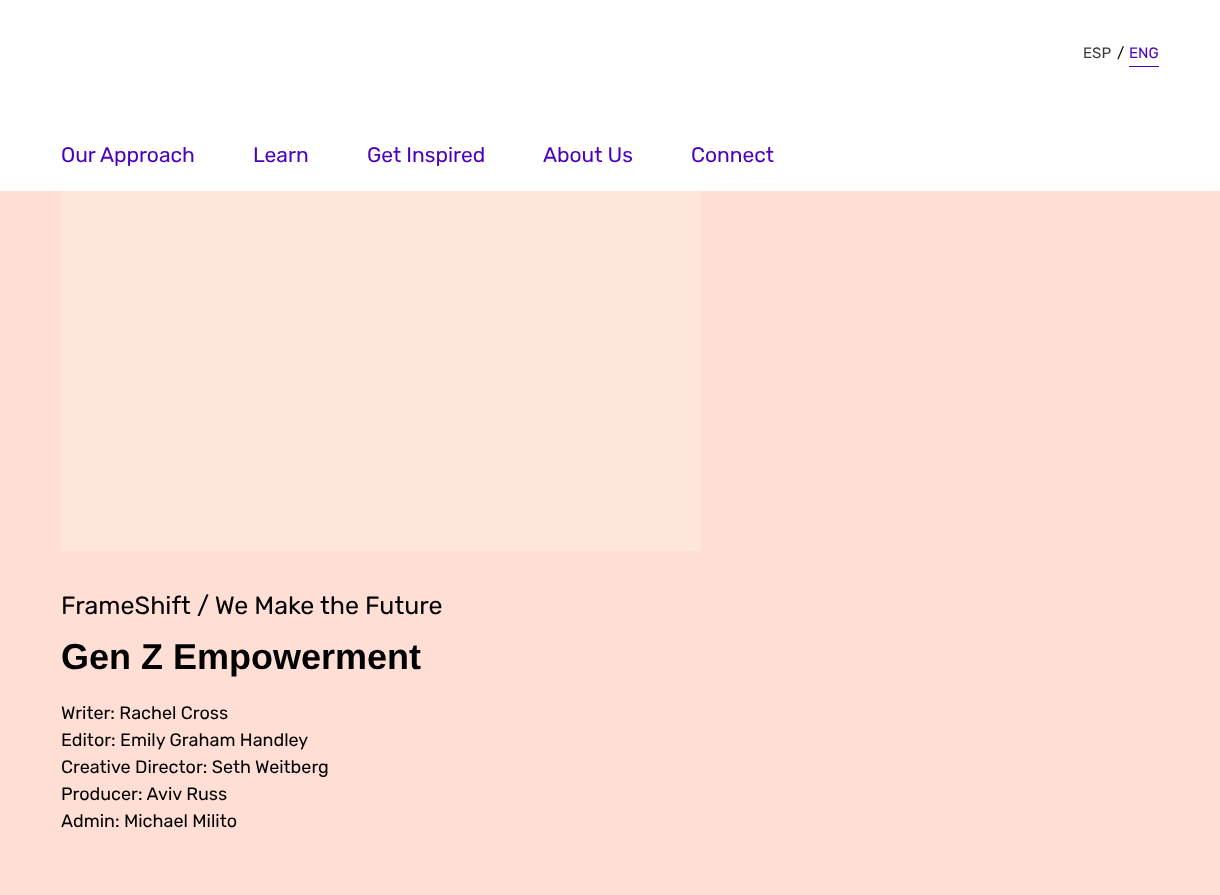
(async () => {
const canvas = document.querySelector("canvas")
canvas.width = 1220
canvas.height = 895
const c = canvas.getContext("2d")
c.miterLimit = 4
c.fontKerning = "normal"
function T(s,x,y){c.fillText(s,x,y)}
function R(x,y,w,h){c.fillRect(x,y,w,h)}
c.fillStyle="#ffdfd5"
R(0,0,1220,895)
c.fillStyle="#fff"
R(0,0,1220,191)
c.font="15px Rubik"
c.fillStyle="#393939"
T("ESP",1083,58)
c.fillStyle="#000"
T("/",1117,58)
c.fillStyle="#4b00bf"
T("ENG",1129,58)
R(1129,66,30,1)
c.font="21px Rubik"
T("Our Approach",61,162)
T("Learn",253,162)
T("Get Inspired",367,162)
T("About Us",543,162)
T("Connect",691,162)
c.fillStyle="#ffe6dd"
R(61,191,640,360)
c.font="25px Rubik"
c.fillStyle="#000"
T("FrameShift / We Make the Future",61,614)
c.font="bold 36px Liberation Sans"
T("Gen Z Empowerment",61,669)
c.font="18px Rubik"
T("Writer: Rachel Cross",61,719)
T("Editor: Emily Graham Handley",61,746)
T("Creative Director: Seth Weitberg",61,773)
T("Producer: Aviv Russ",61,800)
T("Admin: Michael Milito",61,827)
})()
